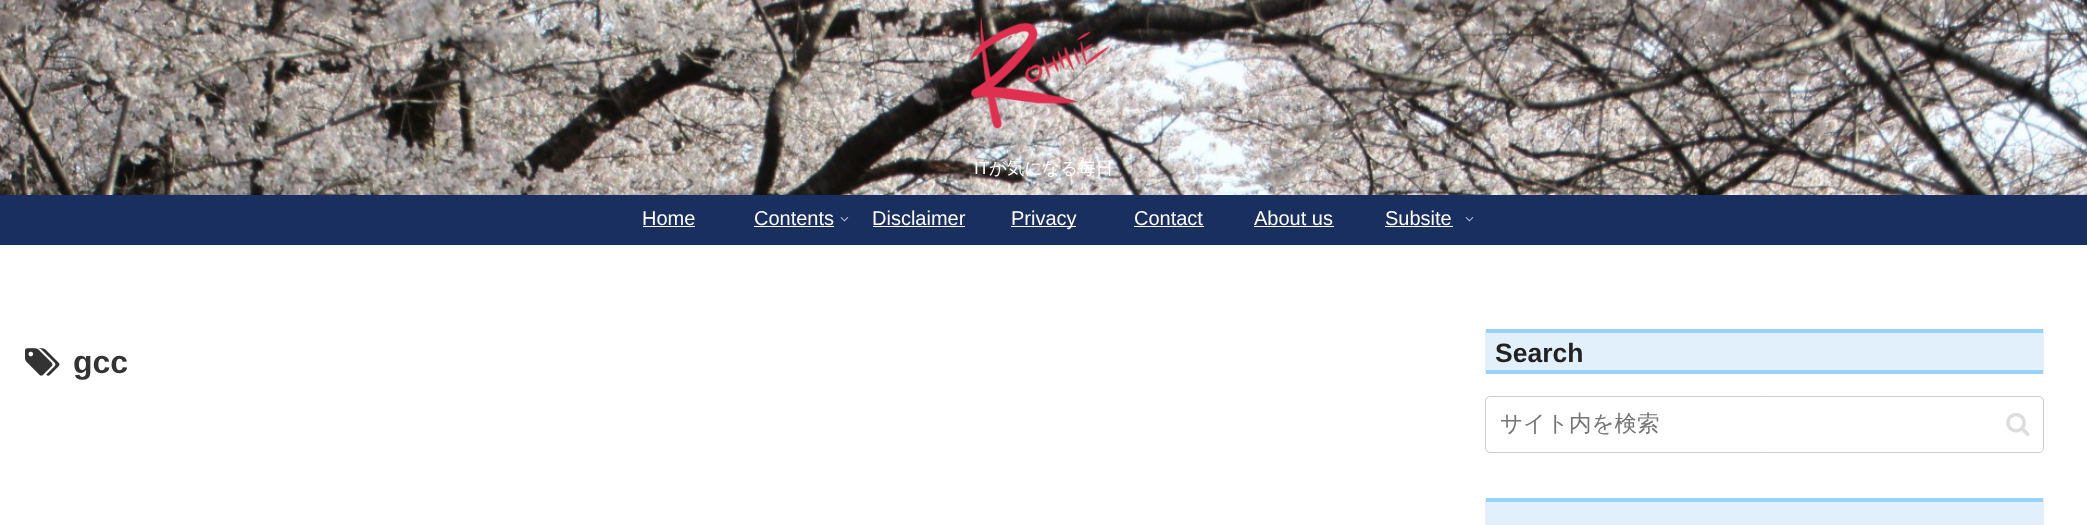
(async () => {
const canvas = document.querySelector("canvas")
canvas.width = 2087
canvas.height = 525
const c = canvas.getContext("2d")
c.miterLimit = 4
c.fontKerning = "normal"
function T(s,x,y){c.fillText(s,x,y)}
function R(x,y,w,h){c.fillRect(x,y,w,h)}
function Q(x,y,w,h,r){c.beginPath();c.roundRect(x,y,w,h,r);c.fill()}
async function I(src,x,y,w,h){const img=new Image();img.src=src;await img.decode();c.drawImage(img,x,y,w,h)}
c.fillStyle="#fff"
R(0,0,2087,525)
c.fillStyle="#192f60"
R(0,195,2087,50)
await I("1.png",0,0,2087,195)
await I("2.png",970,16,140,113)
c.font="17.5px Liberation Sans"
c.fillStyle="#fff"
T("IT",974,174)
c.font="500 17.5px WenQuanYi Zen Hei"
T("が気になる毎日",989,174)
c.font="20px Liberation Sans"
T("Home",642,225)
R(643,226,52,1)
T("Contents",754,225)
R(754,226,80,1)
await I("3.png",840,217,9,5)
T("Disclaimer",872,225)
R(873,226,92,1)
R(1011,226,65,1)
T("Privacy",1011,225)
T("Contact",1134,225)
R(1134,226,70,1)
T("About us",1254,225)
R(1254,226,80,1)
T("Subsite",1385,225)
R(1385,226,68,1)
await I("3.png",1465,217,9,5)
await I("4.png",25,348,35,28)
c.font="bold 32px Liberation Sans"
c.fillStyle="#333"
T("gcc",73,373)
c.fillStyle="#e1f0fa"
Q(1485,329,559,45,2.5)
c.fillStyle="#96d2fa"
R(1486,329,557,4)
R(1486,370,557,4)
c.font="bold 26.5px Liberation Sans"
c.fillStyle="#222"
T("Search",1495,362)
c.beginPath()
c.roundRect(1485.5,396.5,558,56,4.5)
c.strokeStyle="#ccc"
c.stroke()
c.font="500 22.5px WenQuanYi Zen Hei"
c.fillStyle="#757575"
T("サイト内を検索",1500,431)
await I("5.png",2006,413,24,23)
c.fillStyle="#e1f0fa"
Q(1485,498,559,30,2.5)
c.fillStyle="#96d2fa"
R(1486,498,557,4)
})()
